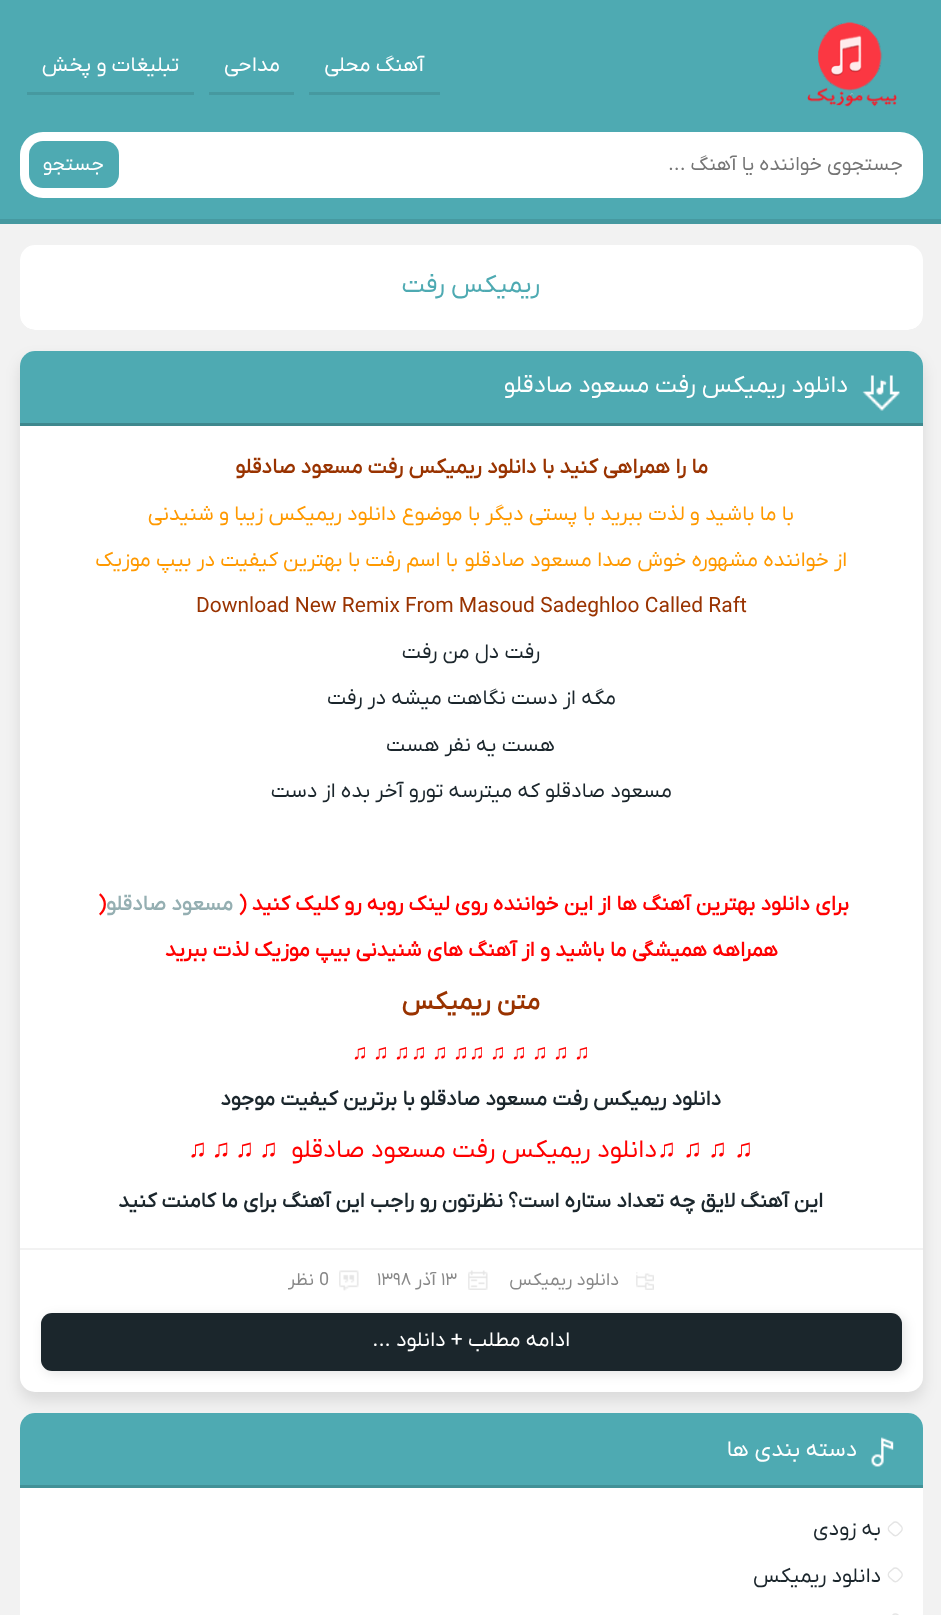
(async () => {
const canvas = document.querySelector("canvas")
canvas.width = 941
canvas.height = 1615
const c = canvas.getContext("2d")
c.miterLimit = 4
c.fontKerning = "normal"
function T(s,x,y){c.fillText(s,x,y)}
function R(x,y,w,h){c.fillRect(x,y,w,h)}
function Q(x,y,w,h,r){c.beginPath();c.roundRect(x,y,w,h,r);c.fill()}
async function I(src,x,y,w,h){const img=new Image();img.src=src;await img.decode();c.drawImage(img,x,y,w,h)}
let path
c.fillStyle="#f2f2f2"
R(0,0,941,1615)
c.fillStyle="#4eaab2"
R(0,0,941,219)
c.fillStyle="#4699a0"
R(0,219,941,5)
await I("1.png",807,22,90,85)
c.direction="rtl"
c.font="21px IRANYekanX"
c.fillStyle="#fff"
T("آهنگ محلی",424,71)
c.fillStyle="#4699a0"
R(309,92,131,3)
c.fillStyle="#fff"
T("مداحی",280,71)
c.fillStyle="#4699a0"
R(209,92,85,3)
c.fillStyle="#fff"
T("تبلیغات و پخش",179,71)
c.fillStyle="#4699a0"
R(27,92,167,3)
c.fillStyle="#fff"
Q(20,132,903,66,23)
c.font="20px IRANYekanX"
c.fillStyle="#757575"
T("جستجوی خواننده یا آهنگ ...",903,170)
c.fillStyle="#4eaab2"
Q(29,141,90,47,14)
c.fillStyle="#fff"
T("جستجو",104,170)
c.fillStyle="#0000001a"
c.filter="blur(7.5px)"
c.beginPath()
c.roundRect(20,359,903,1041,15)
c.fill()
c.filter="none"
c.fillStyle="#fff"
Q(20,351,903,1041,15)
c.fillStyle="#4eaab2"
c.beginPath()
c.roundRect(20,351,903,75,[15,15,0,0])
c.fill()
c.save()
c.beginPath()
c.roundRect(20,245,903,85,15)
c.clip()
c.fillStyle="#0000001a"
c.filter="blur(7.5px)"
c.beginPath()
c.rect(20,252,903,86)
c.fill()
c.filter="none"
c.restore()
c.fillStyle="#fff"
Q(20,245,903,85,15)
c.font="25.5px IRANYekanX"
c.fillStyle="#4eaab2"
T("ریمیکس رفت",540,292)
c.fillStyle="#3e888e"
R(20,423,903,3)
await I("2.png",862,375,38,36)
c.font="24px IRANYekanX"
c.fillStyle="#fff"
T("دانلود ریمیکس رفت مسعود صادقلو",848,392)
c.font="bold 21px IRANYekanX"
c.fillStyle="#930"
T("ما را همراهی کنید با دانلود ریمیکس رفت مسعود صادقلو",708,473)
c.font="21px IRANYekanX"
c.fillStyle="#f90"
T("با ما باشید و لذت ببرید با پستی دیگر با موضوع دانلود ریمیکس زیبا و شنیدنی",794,520)
T("از خواننده مشهوره خوش صدا مسعود صادقلو",847,566)
T("با اسم رفت با بهترین کیفیت در بیپ موزیک",458,566)
c.direction="ltr"
c.fillStyle="#930"
T("Download New Remix From Masoud Sadeghloo Called Raft",196,612)
c.direction="rtl"
c.fillStyle="#1b262c"
T("رفت دل من رفت",540,658)
T("مگه از دست نگاهت میشه در رفت",616,704)
T("هست یه نفر هست",555,751)
T("مسعود صادقلو که میترسه تورو آخر بده از دست",672,797)
c.font="bold 21px IRANYekanX"
c.fillStyle="#f00"
T("برای دانلود بهترین آهنگ ها از این خواننده روی لینک روبه رو کلیک کنید (",849,910)
c.fillStyle="#95afb2"
T("مسعود صادقلو",233,910)
c.direction="ltr"
c.fillStyle="#f00"
T(")",98,910)
c.direction="rtl"
T("همراهه همیشگی ما باشید و از آهنگ های شنیدنی بیپ موزیک لذت ببرید",778,956)
c.font="bold 25.5px IRANYekanX"
c.fillStyle="#930"
T("متن ریمیکس",540,1009)
c.direction="ltr"
c.font="21px Liberation Serif"
c.fillStyle="#f00"
T("♫ ♫ ♫ ♫ ♫ ♫",469,1059)
T("♫ ♫ ♫",411,1059)
T("♫ ♫ ♫",352,1059)
c.direction="rtl"
c.font="bold 21px IRANYekanX"
c.fillStyle="#1b262c"
T("دانلود ریمیکس رفت مسعود صادقلو با برترین کیفیت موجود",721,1105)
c.font="25.5px Liberation Serif"
c.fillStyle="#f00"
T("♫",753,1157)
T("♫",727,1157)
T("♫",702,1157)
T("♫",676,1157)
c.font="25.5px IRANYekanX"
T("دانلود ریمیکس رفت مسعود صادقلو",657,1157)
c.direction="ltr"
c.font="25.5px Liberation Serif"
T("♫",259,1157)
c.wordSpacing="-2px"
T("♫ ♫ ♫",188,1157)
c.wordSpacing="0px"
c.direction="rtl"
c.font="bold 21px IRANYekanX"
c.fillStyle="#1b262c"
T("این آهنگ لایق چه تعداد ستاره است؟ نظرتون رو راجب این آهنگ برای ما کامنت کنید",823,1207)
c.fillStyle="#f2f2f2"
R(20,1248,903,2)
await I("3.png",636,1272,18,18)
c.font="18px IRANYekanX"
c.fillStyle="#888"
T("دانلود ریمیکس",619,1285)
await I("4.png",468,1270,20,20)
c.direction="ltr"
T("۱۳",441,1285)
c.direction="rtl"
T("آذر",436,1285)
c.direction="ltr"
T("۱۳۹۸",377,1285)
await I("5.png",339,1270,20,21)
T("0",319,1285)
c.direction="rtl"
T("نظر",314,1285)
c.fillStyle="#0000001a"
c.filter="blur(6px)"
c.beginPath()
c.roundRect(44,1316,861,58,11)
c.fill()
c.filter="none"
c.fillStyle="#1b262c"
Q(41,1313,861,58,11)
c.font="21px IRANYekanX"
c.fillStyle="#fff"
T("ادامه مطلب + دانلود ...",570,1346)
c.save()
c.beginPath()
c.roundRect(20,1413,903,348,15)
c.clip()
c.fillStyle="#0000001a"
c.filter="blur(7.5px)"
c.beginPath()
c.rect(20,1421,903,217)
c.fill()
c.filter="none"
c.restore()
Q(20,1413,903,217,15)
c.fillStyle="#4eaab2"
c.beginPath()
c.roundRect(20,1413,903,75,[15,15,0,0])
c.fill()
c.fillStyle="#429197"
R(20,1485,903,3)
await I("6.png",871,1437,23,30)
c.font="22.5px IRANYekanX"
c.fillStyle="#fff"
T("دسته بندی ها",857,1456)
path = new Path2D("M898 1523l3 3c1.5 1.5 1.5 4 0 5.5l-3 3c-1.5 1.5-4 1.5-5 0l-3.5-3c-1.5-1.5-1.5-4 0-5.5l3.5-3c1-1.5 3.5-1.5 5 0zm0 46l3 3c1.5 1.5 1.5 4 0 5.5l-3 3c-1.5 1.5-4 1.5-5 0l-3.5-3c-1.5-1.5-1.5-4 0-5.5l3.5-3c1-1.5 3.5-1.5 5 0z")
c.strokeStyle="#e5e5e5"
c.lineWidth=1.5
c.stroke(path)
c.font="21px IRANYekanX"
c.fillStyle="#1b262c"
T("به زودی",881,1535)
T("دانلود ریمیکس",881,1582)
path = new Path2D("M898 1615l3 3.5c1.5 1.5 1.5 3.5 0 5l-3 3.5c-1.5 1.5-4 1.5-5 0l-3.5-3.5c-1.5-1.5-1.5-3.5 0-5l3.5-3.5c1-1.5 3.5-1.5 5 0z")
c.stroke(path)
})()
